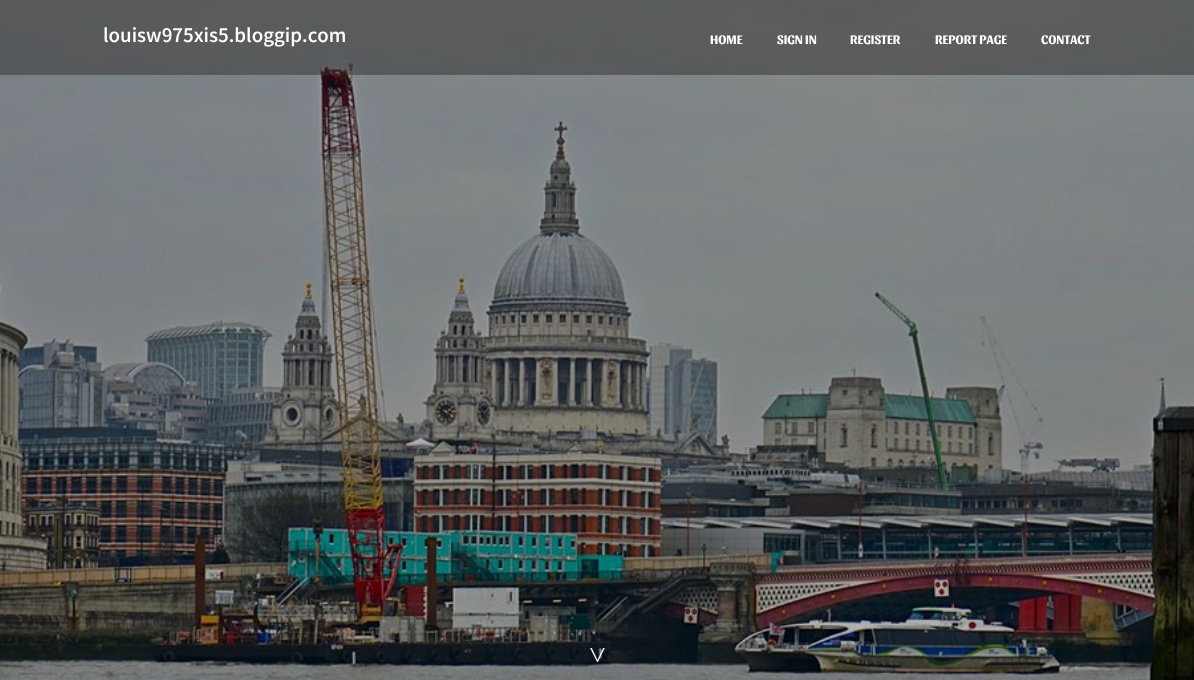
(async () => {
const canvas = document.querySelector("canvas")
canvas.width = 1194
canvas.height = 680
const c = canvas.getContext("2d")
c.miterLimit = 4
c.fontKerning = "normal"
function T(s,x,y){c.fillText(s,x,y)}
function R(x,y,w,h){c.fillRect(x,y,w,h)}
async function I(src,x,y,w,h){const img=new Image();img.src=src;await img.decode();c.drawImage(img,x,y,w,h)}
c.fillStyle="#fff"
R(0,0,1194,680)
await I("1.png",0,0,1194,680)
c.fillStyle="#2f2f2f80"
R(0,0,1194,75)
c.font="bold 21px Varta"
c.fillStyle="#fff"
T("louisw975xis5.bloggip.com",103,42)
c.font="bold 13px Sansita"
T("HOME",710,44)
T("SIGN IN",777,44)
T("REGISTER",850,44)
T("REPORT PAGE",935,44)
T("CONTACT",1041,44)
c.font="30px Liberation Serif"
T("˅",589,665)
})()
